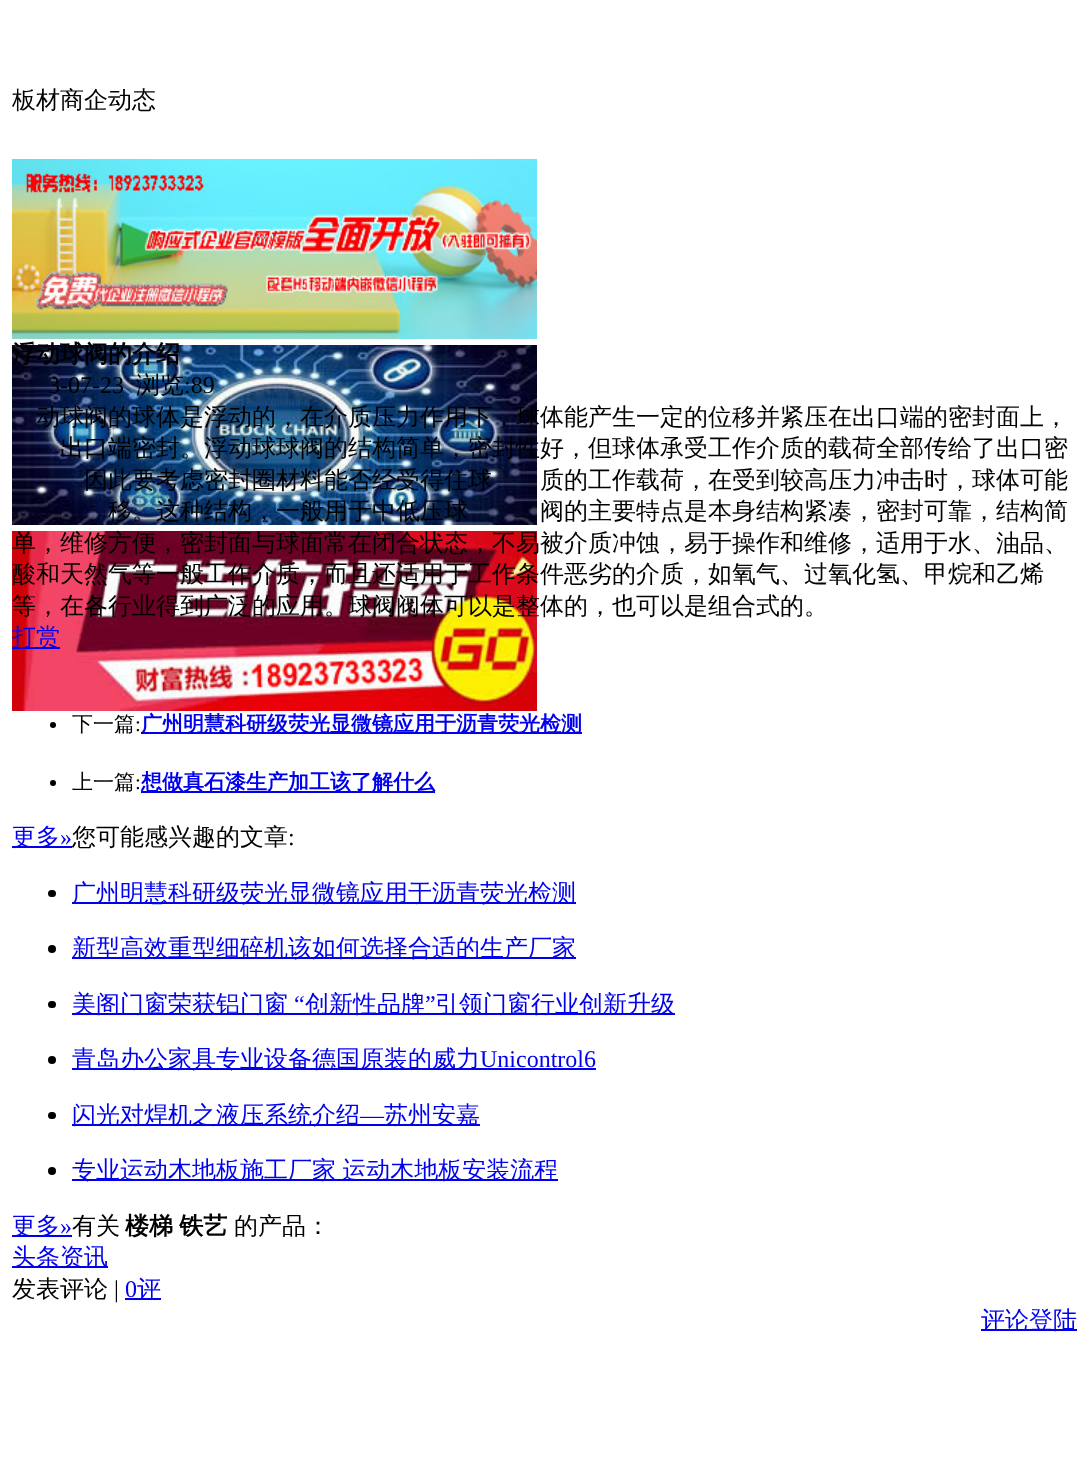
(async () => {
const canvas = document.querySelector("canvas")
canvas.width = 1089
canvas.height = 1484
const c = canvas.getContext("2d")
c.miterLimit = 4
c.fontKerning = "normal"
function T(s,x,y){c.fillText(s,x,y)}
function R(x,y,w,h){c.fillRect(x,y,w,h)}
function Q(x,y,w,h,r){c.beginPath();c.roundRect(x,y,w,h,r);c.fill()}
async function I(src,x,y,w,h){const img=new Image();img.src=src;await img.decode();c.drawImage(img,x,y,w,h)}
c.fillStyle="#fff"
R(0,0,1089,1484)
c.font="500 24px WenQuanYi Zen Hei"
c.fillStyle="#000"
T("板材商企动态",12,108)
await I("1.png",12,159,525,180)
await I("2.png",12,345,525,180)
await I("3.png",12,531,525,180)
c.font="bold 24px WenQuanYi Zen Hei"
T("浮动球阀的介绍",12,362)
c.font="24px Liberation Serif"
T("3-07-23",48,393)
c.font="500 24px WenQuanYi Zen Hei"
T("浏览",136,393)
c.font="24px Liberation Serif"
T(":89",184,393)
c.font="500 24px WenQuanYi Zen Hei"
T("动球阀的球体是浮动的，在介质压力作用下，球体能产生一定的位移并紧压在出口端的密封面上，",36,425)
T("出口端密封。浮动球球阀的结构简单，密封性好，但球体承受工作介质的载荷全部传给了出口密",60,456)
T("因此要考虑密封圈材料能否经受得住球",84,488)
T("质的工作载荷，在受到较高压力冲击时，球体可能",540,488)
T("移。这种结构，一般用于中低压球",108,519)
T("阀的主要特点是本身结构紧凑，密封可靠，结构简",540,519)
T("单，维修方便，密封面与球面常在闭合状态，不易被介质冲蚀，易于操作和维修，适用于水、油品、",12,551)
T("酸和天然气等一般工作介质，而且还适用于工作条件恶劣的介质，如氧气、过氧化氢、甲烷和乙烯",12,582)
T("等，在各行业得到广泛的应用。球阀阀体可以是整体的，也可以是组合式的。",12,614)
c.fillStyle="#00e"
R(12,647,48,2)
T("打赏",12,645)
c.fillStyle="#000"
c.beginPath()
c.arc(53,725,3,0,7)
c.fill()
c.font="500 21px WenQuanYi Zen Hei"
T("下一篇",72,731)
c.font="21px Liberation Serif"
T(":",135,731)
c.fillStyle="#00e"
R(141,732,441,2)
c.font="bold 21px WenQuanYi Zen Hei"
T("广州明慧科研级荧光显微镜应用于沥青荧光检测",141,731)
c.fillStyle="#000"
c.beginPath()
c.arc(53,783,3,0,7)
c.fill()
c.font="500 21px WenQuanYi Zen Hei"
T("上一篇",72,789)
c.font="21px Liberation Serif"
T(":",135,789)
c.fillStyle="#00e"
R(141,791,294,2)
c.font="bold 21px WenQuanYi Zen Hei"
T("想做真石漆生产加工该了解什么",141,789)
R(12,846,60,2)
c.font="500 24px WenQuanYi Zen Hei"
T("更多",12,845)
c.font="24px Liberation Serif"
T("»",60,845)
c.font="500 24px WenQuanYi Zen Hei"
c.fillStyle="#000"
T("您可能感兴趣的文章",72,845)
c.font="24px Liberation Serif"
T(":",288,845)
Q(48,890,8,7,3.5)
c.fillStyle="#00e"
R(72,902,504,2)
c.font="500 24px WenQuanYi Zen Hei"
T("广州明慧科研级荧光显微镜应用于沥青荧光检测",72,901)
c.fillStyle="#000"
c.beginPath()
c.arc(52,949,4,0,7)
c.fill()
c.fillStyle="#00e"
R(72,957,504,2)
T("新型高效重型细碎机该如何选择合适的生产厂家",72,956)
R(72,1013,603,2)
T("美阁门窗荣获铝门窗",72,1012)
c.font="24px Liberation Serif"
T("“",294,1012)
c.font="500 24px WenQuanYi Zen Hei"
T("创新性品牌",305,1012)
c.font="24px Liberation Serif"
T("”",425,1012)
c.font="500 24px WenQuanYi Zen Hei"
T("引领门窗行业创新升级",435,1012)
c.fillStyle="#000"
Q(48,1001,8,7,3.5)
c.beginPath()
c.arc(52,1060,4,0,7)
c.fill()
c.fillStyle="#00e"
R(72,1068,524,2)
T("青岛办公家具专业设备德国原装的威力",72,1067)
c.font="24px Liberation Serif"
T("Unicontrol6",480,1067)
c.fillStyle="#000"
Q(48,1112,8,7,3.5)
c.fillStyle="#00e"
R(72,1124,408,2)
c.font="500 24px WenQuanYi Zen Hei"
T("闪光对焊机之液压系统介绍",72,1123)
c.font="24px Liberation Serif"
T("—",360,1123)
c.font="500 24px WenQuanYi Zen Hei"
T("苏州安嘉",384,1123)
c.fillStyle="#000"
c.beginPath()
c.arc(52,1171,4,0,7)
c.fill()
c.fillStyle="#00e"
R(72,1179,486,2)
c.wordSpacing="-1px"
T("专业运动木地板施工厂家 运动木地板安装流程",72,1178)
R(12,1235,60,2)
c.wordSpacing="0px"
T("更多",12,1234)
c.font="24px Liberation Serif"
T("»",60,1234)
c.font="500 24px WenQuanYi Zen Hei"
c.fillStyle="#000"
T("有关",72,1234)
c.wordSpacing="-1px"
c.font="bold 24px WenQuanYi Zen Hei"
T("楼梯 铁艺",125,1234)
c.wordSpacing="0px"
c.font="500 24px WenQuanYi Zen Hei"
T("的产品：",234,1234)
c.fillStyle="#00e"
R(12,1266,96,2)
T("头条资讯",12,1265)
c.fillStyle="#000"
T("发表评论",12,1297)
c.font="24px Liberation Serif"
T("|",114,1297)
c.fillStyle="#00e"
T("0",125,1297)
R(125,1298,36,2)
c.font="500 24px WenQuanYi Zen Hei"
T("评",137,1297)
R(981,1329,96,2)
T("评论登陆",981,1328)
})()
